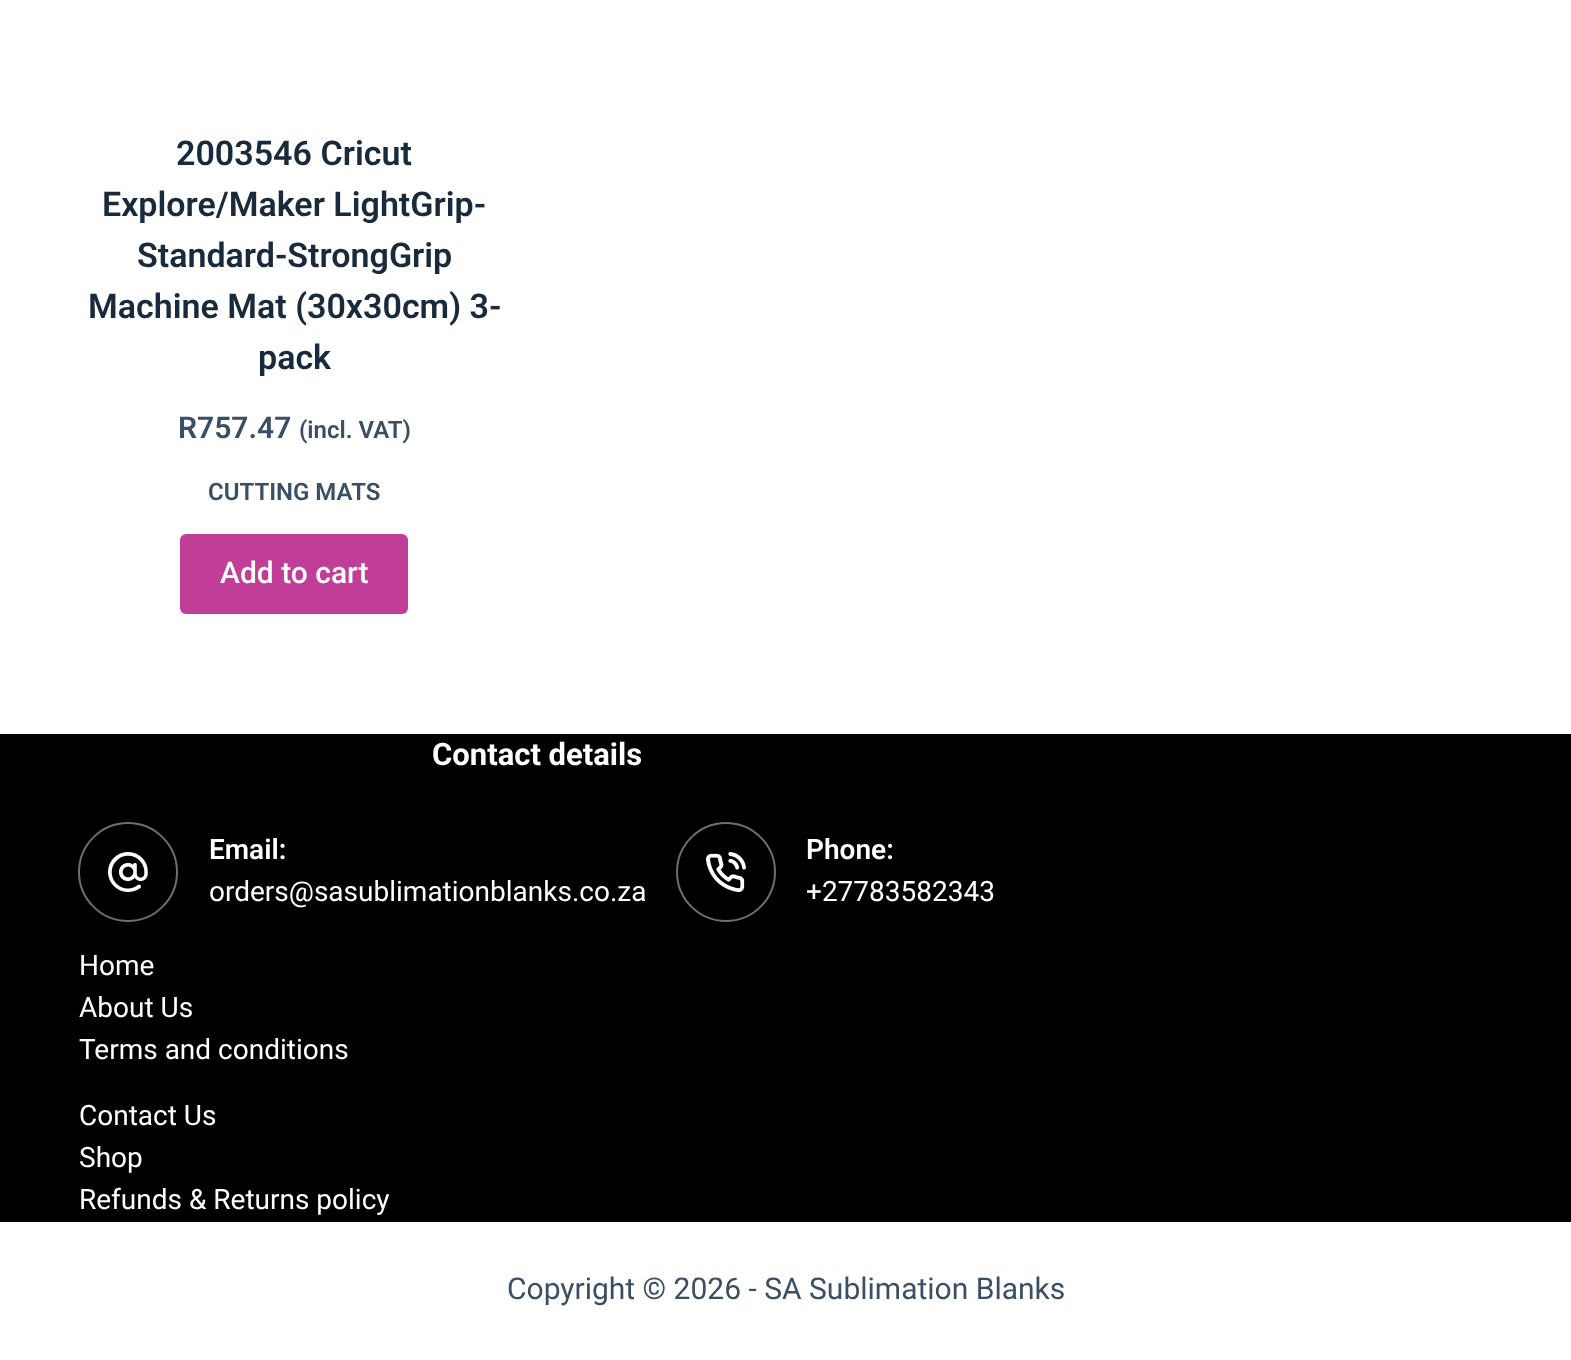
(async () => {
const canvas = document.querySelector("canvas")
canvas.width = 1571
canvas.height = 1360
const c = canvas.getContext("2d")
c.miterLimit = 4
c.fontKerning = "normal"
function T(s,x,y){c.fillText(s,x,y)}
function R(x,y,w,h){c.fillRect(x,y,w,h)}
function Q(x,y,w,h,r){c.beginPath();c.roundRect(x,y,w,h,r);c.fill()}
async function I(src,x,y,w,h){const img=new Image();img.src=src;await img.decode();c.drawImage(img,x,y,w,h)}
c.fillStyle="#000"
R(0,0,1571,1360)
c.fillStyle="#fff"
R(0,0,1571,734)
c.font="600 34px Roboto"
c.fillStyle="#192a3d"
T("2003546 Cricut",176,165)
T("Explore/Maker LightGrip-",102,216)
T("Standard-StrongGrip",137,267)
T("Machine Mat (30x30cm) 3-",88,318)
T("pack",258,369)
c.font="600 30px Roboto"
c.fillStyle="#3a4f66"
T("R757.47",178,438)
c.font="600 24px Roboto"
T("(incl. VAT)",299,438)
T("CUTTING MATS",208,500)
c.fillStyle="#c13e98"
Q(180,534,228,80,6)
c.font="500 30px Roboto"
c.fillStyle="#fff"
T("Add to cart",220,583)
c.font="bold 31px Roboto"
T("Contact details",432,765)
c.beginPath()
c.arc(128,872,49,0,7)
c.strokeStyle="#6d6f72"
c.lineWidth=2
c.stroke()
await I("1.png",108,852,40,40)
c.font="600 28px Roboto"
T("Email:",209,859)
c.font="28px Roboto"
T("orders@sasublimationblanks.co.za",209,901)
c.beginPath()
c.arc(726,872,49,0,7)
c.stroke()
await I("2.png",706,852,40,40)
c.font="600 28px Roboto"
T("Phone:",806,859)
c.font="28px Roboto"
T("+27783582343",806,901)
T("Home",79,975)
T("About Us",79,1017)
T("Terms and conditions",79,1059)
T("Contact Us",79,1125)
T("Shop",79,1167)
T("Refunds & Returns policy",79,1209)
R(0,1222,1571,138)
c.font="30px Roboto"
c.fillStyle="#3a4f66"
T("Copyright © 2026 - SA Sublimation Blanks",507,1299)
})()
